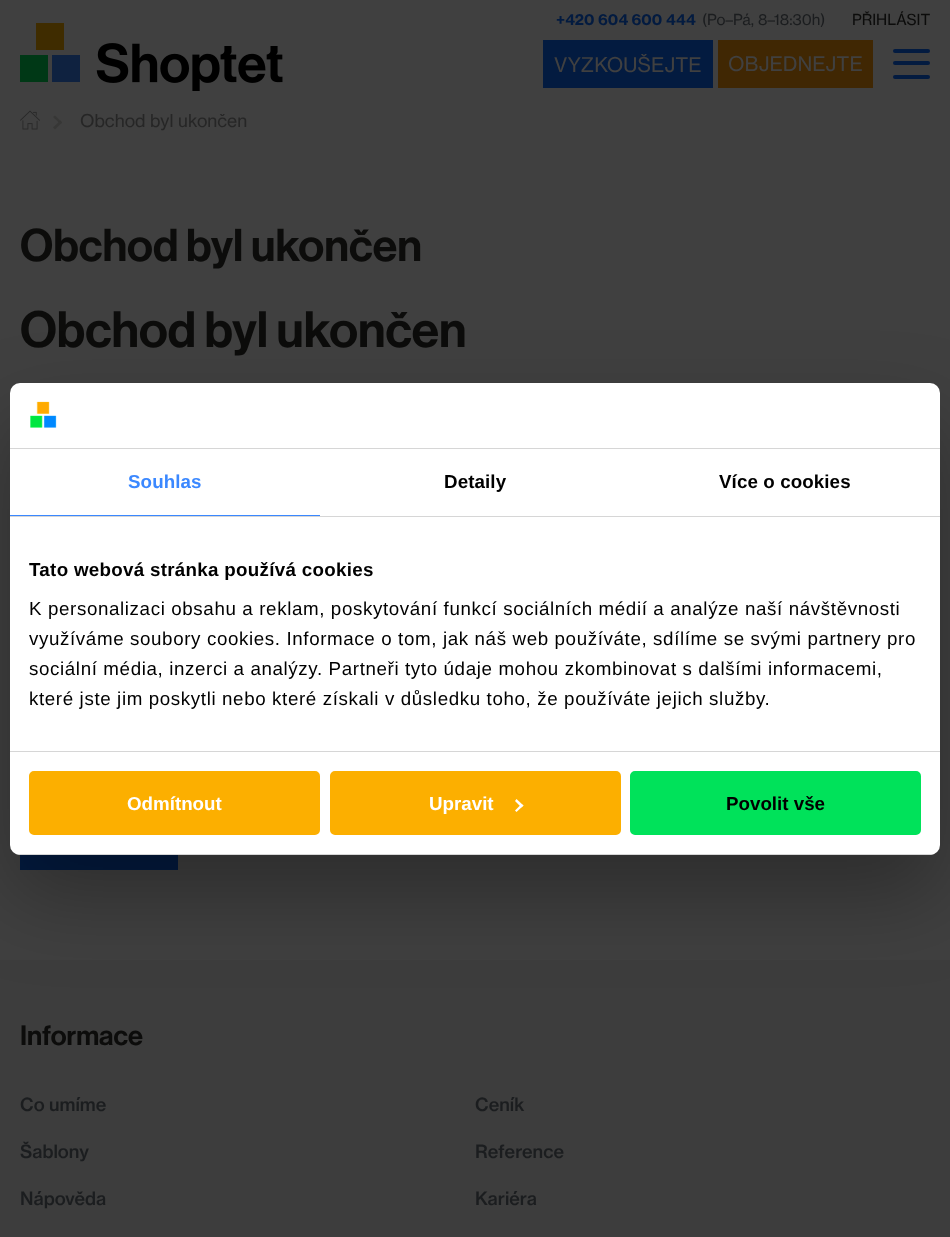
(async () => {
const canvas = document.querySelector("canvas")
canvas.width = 950
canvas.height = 1237
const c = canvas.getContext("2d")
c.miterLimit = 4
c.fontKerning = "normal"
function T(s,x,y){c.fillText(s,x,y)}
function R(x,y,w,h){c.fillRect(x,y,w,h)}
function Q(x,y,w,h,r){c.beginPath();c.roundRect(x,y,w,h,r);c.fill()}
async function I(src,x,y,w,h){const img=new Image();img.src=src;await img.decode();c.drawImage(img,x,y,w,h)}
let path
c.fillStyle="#404040"
R(0,0,950,1237)
c.font="bold 15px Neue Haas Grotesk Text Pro"
c.fillStyle="#031b40"
T("+420 604 600 444",556,25)
c.font="15px Neue Haas Grotesk Text Pro"
c.fillStyle="#1b1d1f"
T("(Po–Pá, 8–18:30h)",702,25)
c.fillStyle="#0c0c0b"
T("PŘIHLÁSIT",852,25)
await I("1.png",20,23,263,68)
c.fillStyle="#031b40"
R(543,40,170,48)
c.font="20px Neue Haas Grotesk Text Pro"
c.fillStyle="#404040"
T("VYZKOUŠEJTE",554,72)
c.fillStyle="#402703"
R(718,40,155,48)
c.fillStyle="#404040"
T("OBJEDNEJTE",728,71)
c.fillStyle="#031b40"
Q(893,61,37,4,2)
Q(893,49,37,4,2)
Q(893,75,37,4,2)
await I("2.png",20,110,20,20)
c.fillStyle="#373736"
path = new Path2D("M53 117l2-1.5l7 7l-1.5 1.5z")
c.fill(path)
path = new Path2D("M53 127.5l7.5-7l1.5 2l-7 7z")
c.fill(path)
c.font="17.5px Neue Haas Grotesk Text Pro"
c.fillStyle="#262626"
T("Obchod byl ukončen",80,127)
c.font="500 45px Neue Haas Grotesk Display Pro"
c.fillStyle="#0c0c0b"
T("Obchod byl ukončen",20,261)
c.font="500 50px Neue Haas Grotesk Display Pro"
T("Obchod byl ukončen",20,347)
c.fillStyle="#031b40"
R(20,855,158,15)
c.fillStyle="#3d3d3d"
R(0,960,950,277)
c.font="500 27.5px Neue Haas Grotesk Display Pro"
c.fillStyle="#0c0c0b"
T("Informace",20,1045)
c.font="500 18px Neue Haas Grotesk Text Pro"
c.fillStyle="#1b1d1f"
T("Co umíme",20,1111)
T("Ceník",475,1111)
T("Šablony",20,1158)
T("Reference",475,1158)
T("Nápověda",20,1205)
T("Kariéra",475,1205)
c.fillStyle="#0000004d"
c.filter="blur(42.5px)"
c.beginPath()
c.roundRect(10,423,930,472,10)
c.fill()
c.filter="none"
c.fillStyle="#fff"
Q(10,383,930,472,10)
c.fillStyle="#d6d6d6"
R(10,448,930,1)
await I("3.png",30,401,27,27)
R(10,516,930,1)
c.fillStyle="#3b88ff"
R(10,515,310,1)
c.letterSpacing="0.1px"
c.font="bold 18.75px Liberation Sans"
T("Souhlas",128,488)
c.fillStyle="#000"
T("Detaily",444,488)
T("Více o cookies",719,488)
c.fillStyle="#d6d6d6"
R(10,751,930,1)
c.letterSpacing="0.3px"
c.fillStyle="#000"
T("Tato webová stránka používá cookies",29,576)
c.letterSpacing="0.62px"
c.font="18.75px Liberation Sans"
T("K personalizaci obsahu a reklam, poskytování funkcí sociálních médií a analýze naší návštěvnosti",29,615)
T("využíváme soubory cookies. Informace o tom, jak náš web používáte, sdílíme se svými partnery pro",29,645)
T("sociální média, inzerci a analýzy. Partneři tyto údaje mohou zkombinovat s dalšími informacemi,",29,675)
T("které jste jim poskytli nebo které získali v důsledku toho, že používáte jejich služby.",29,705)
c.save()
c.beginPath()
c.roundRect(10,383,930,472,10)
c.clip()
c.fillStyle="#d6d6d6"
R(10,854,930,1)
c.restore()
c.fillStyle="#fcaf00"
c.beginPath()
c.roundRect(30.5,772.5,288,61,3.5)
c.fill()
c.strokeStyle="#fcaf00"
c.lineWidth=3
c.stroke()
c.letterSpacing="0px"
c.font="bold 18.75px Liberation Sans"
c.fillStyle="#fff"
T("Odmítnout",127,810)
c.fillStyle="#fcaf00"
c.beginPath()
c.roundRect(331.5,772.5,288,61,3.5)
c.fill()
c.stroke()
c.fillStyle="#fff"
T("Upravit",429,810)
path = new Path2D("M516.5 799l7 6.5l-2 2l-6.5-6.5z")
c.fill(path)
path = new Path2D("M521.5 804l2 1.5l-7 6.5l-1.5-1.5z")
c.fill(path)
c.fillStyle="#00e25a"
c.beginPath()
c.roundRect(631.5,772.5,288,61,3.5)
c.fill()
c.strokeStyle="#00e25a"
c.stroke()
c.fillStyle="#000"
T("Povolit vše",726,810)
})()
